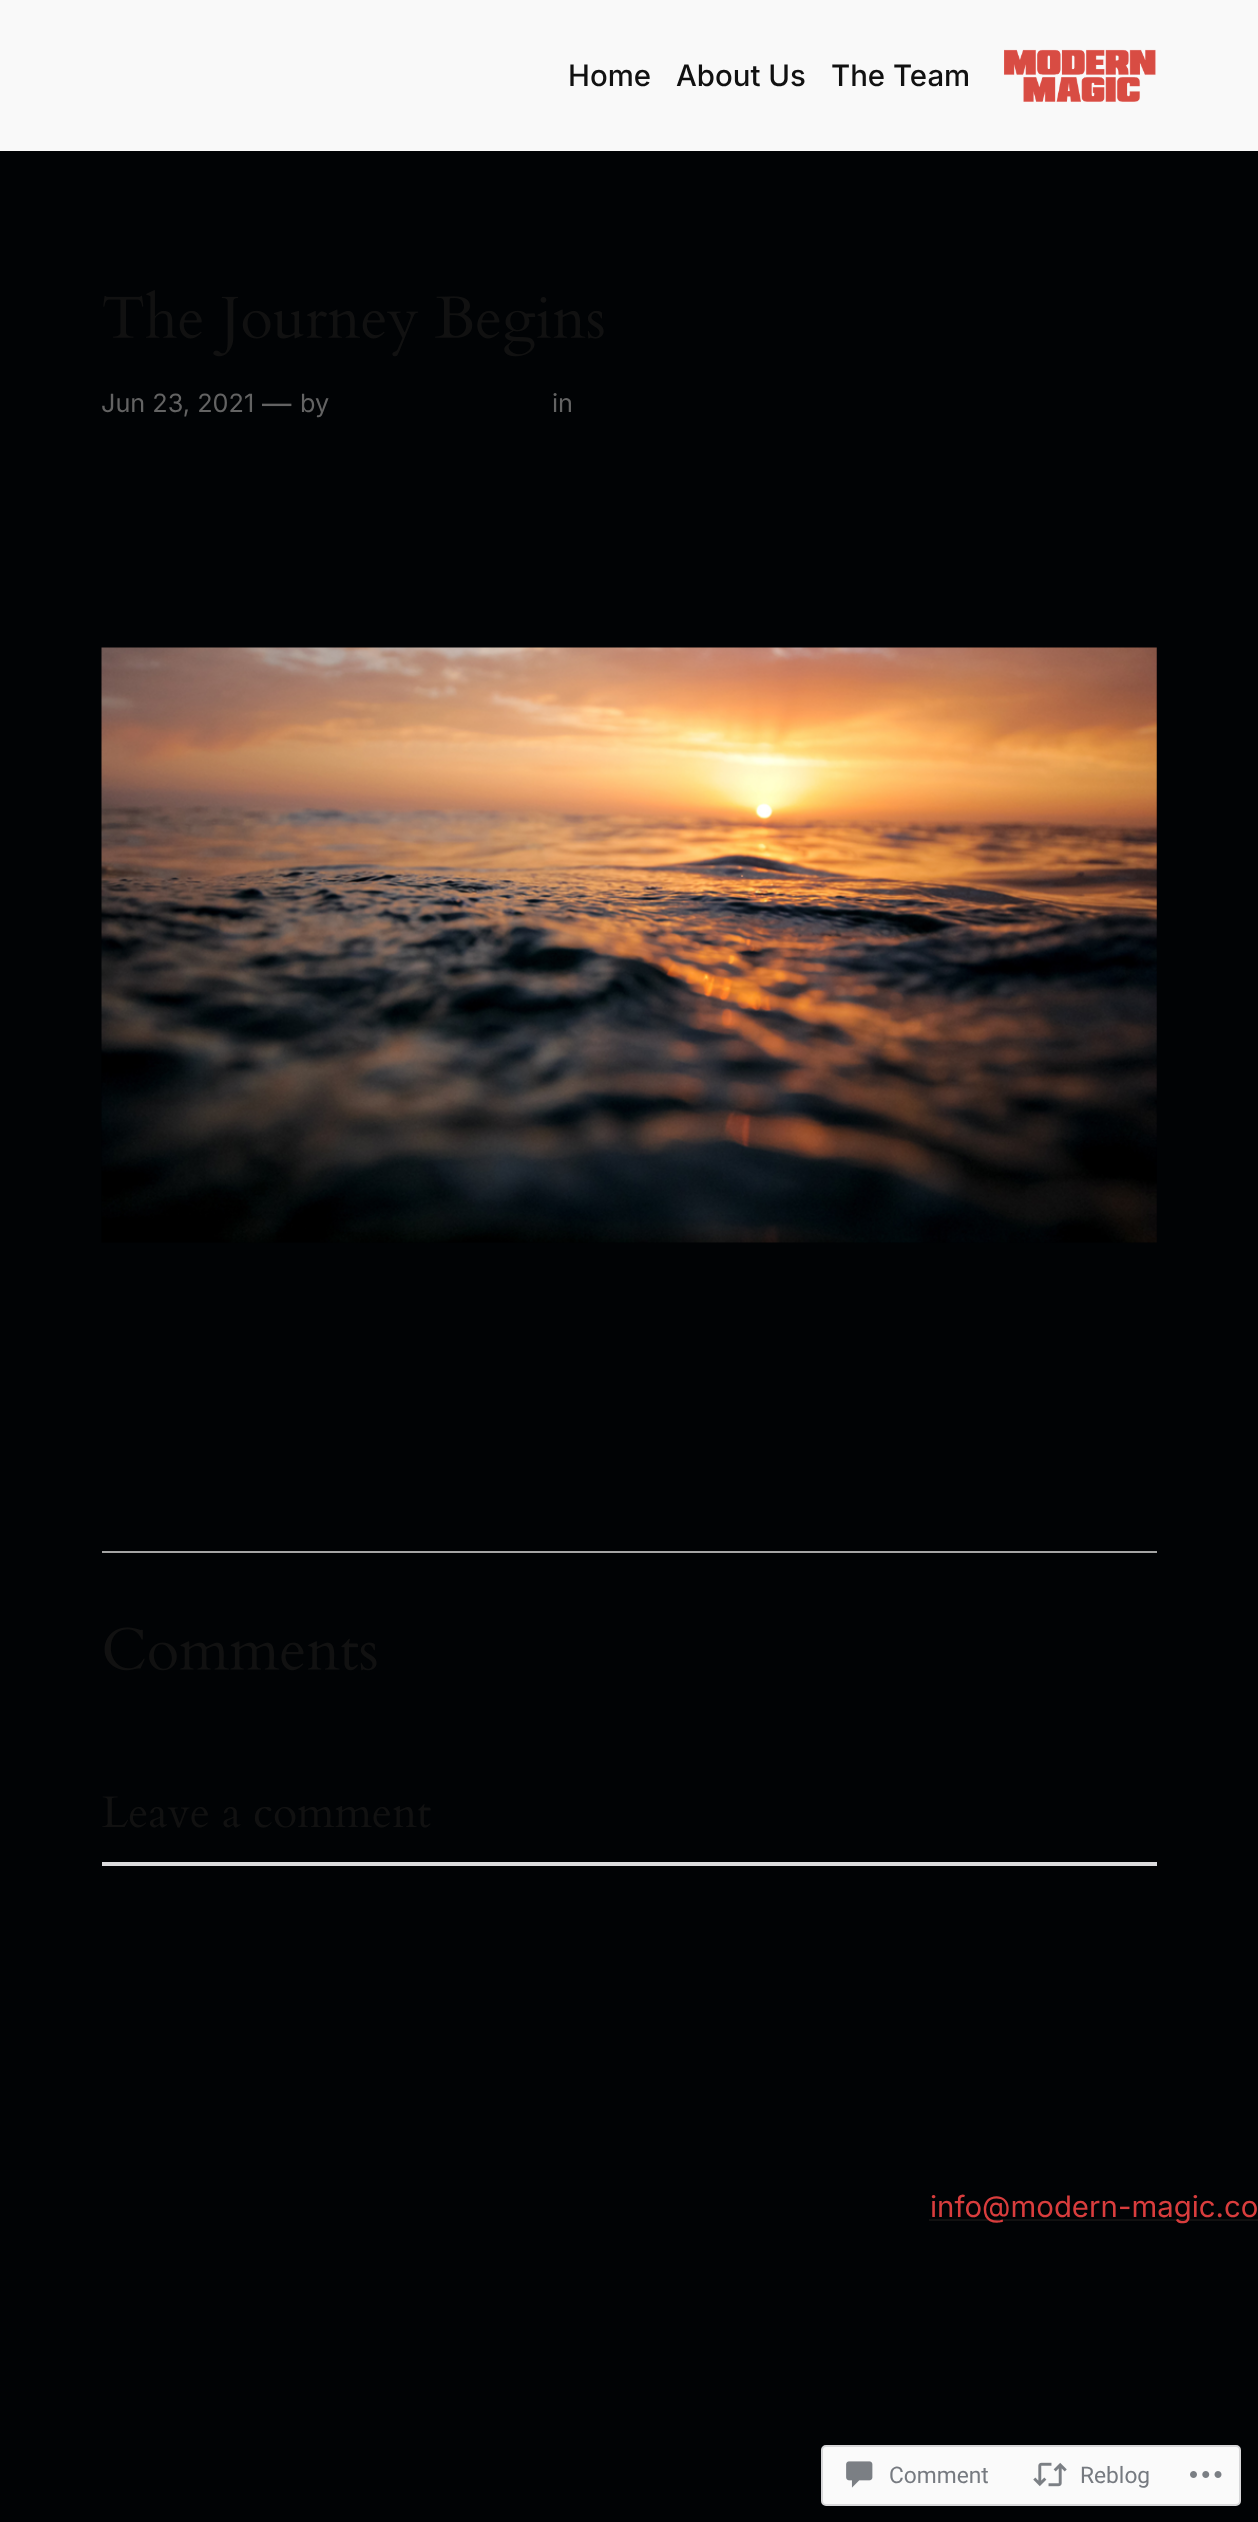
(async () => {
const canvas = document.querySelector("canvas")
canvas.width = 1258
canvas.height = 2522
const c = canvas.getContext("2d")
c.miterLimit = 4
c.fontKerning = "normal"
function T(s,x,y){c.fillText(s,x,y)}
function R(x,y,w,h){c.fillRect(x,y,w,h)}
async function I(src,x,y,w,h){const img=new Image();img.src=src;await img.decode();c.drawImage(img,x,y,w,h)}
c.fillStyle="#010305"
R(0,0,1258,2522)
c.fillStyle="#f9f9f9"
R(0,0,1258,151)
c.font="500 29.4px Inter"
c.fillStyle="#111"
T("Home",568,86)
T("About Us",676,86)
T("The Team",831,86)
await I("1.png",1004,49,152,53)
await I("2.png",103,290,501,67)
c.font="25.25px Inter"
c.fillStyle="#636363"
T("Jun 23, 2021",101,412)
c.font="29.4px Inter"
T("—",262,414)
c.font="25.25px Inter"
T("by",300,412)
T("in",552,412)
await I("3.png",101,647,1056,596)
c.fillStyle="#a4a4a4"
R(102,1551,1055,2)
await I("4.png",104,1627,273,44)
await I("5.png",102,1796,329,32)
c.fillStyle="#dcdcde"
R(102,1862,1055,4)
c.fillStyle="#111"
R(929,2219,329,2)
c.font="29.4px Inter"
c.fillStyle="#d93d3d"
T("info@modern-magic.co",930,2217)
c.fillStyle="#fafafa"
c.beginPath()
c.roundRect(822,2446,418,59,4)
c.fill()
c.strokeStyle="#d8d8da"
c.lineWidth=2
c.stroke()
await I("6.png",846,2461,27,27)
c.font="22.75px Roboto"
c.fillStyle="#767a80"
T("Comment",889,2483)
await I("7.png",1033,2462,34,25)
T("Reblog",1080,2483)
await I("8.png",1190,2471,32,7)
})()
